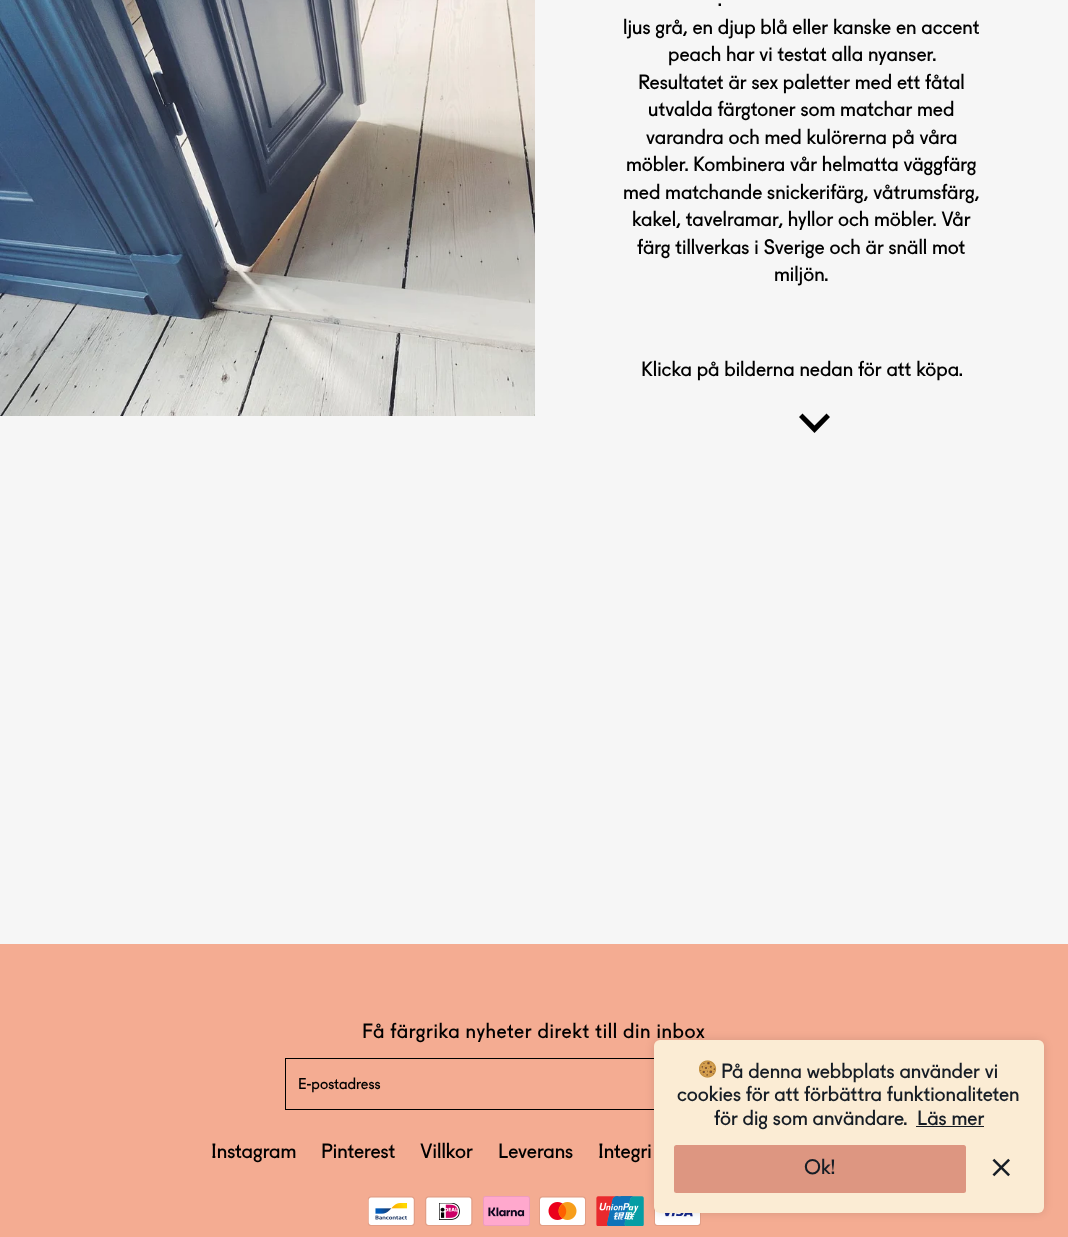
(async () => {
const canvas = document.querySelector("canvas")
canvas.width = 1068
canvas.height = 1237
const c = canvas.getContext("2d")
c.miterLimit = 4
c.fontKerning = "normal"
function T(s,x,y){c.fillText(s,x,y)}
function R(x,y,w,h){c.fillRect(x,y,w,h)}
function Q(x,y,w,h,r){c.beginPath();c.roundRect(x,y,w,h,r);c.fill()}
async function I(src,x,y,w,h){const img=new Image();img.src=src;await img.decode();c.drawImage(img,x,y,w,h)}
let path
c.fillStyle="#f6f6f6"
R(0,0,1068,1237)
await I("1.png",0,0,535,416)
c.font="20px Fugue"
c.fillStyle="#000"
T(".",718,6)
T("ljus grå, en djup blå eller kanske en accent",623,34)
T("peach har vi testat alla nyanser.",668,61)
T("Resultatet är sex paletter med ett fåtal",638,89)
T("utvalda färgtoner som matchar med",648,116)
T("varandra och med kulörerna på våra",646,144)
T("möbler. Kombinera vår helmatta väggfärg",626,171)
T("med matchande snickerifärg, våtrumsfärg,",623,199)
T("kakel, tavelramar, hyllor och möbler. Vår",632,226)
T("färg tillverkas i Sverige och är snäll mot",637,254)
T("miljön.",774,281)
T("Klicka på bilderna nedan för att köpa.",641,376)
path = new Path2D("M799 417l3.5-3.5l12 12l12-12l3.5 3.5l-15.5 16z")
c.fill(path)
c.fillStyle="#f4ac92"
R(0,944,1068,293)
c.letterSpacing="0.6px"
c.fillStyle="#000"
T("Få färgrika nyheter direkt till din inbox",362,1038)
c.strokeStyle="#000"
c.strokeRect(285.5,1058.5,499,51)
c.letterSpacing="0px"
c.font="15px Fugue"
T("E-postadress",298,1089)
c.font="20px Fugue"
T("Instagram",211,1158)
T("Pinterest",321,1158)
T("Villkor",420,1158)
T("Leverans",498,1158)
T("Integri",598,1158)
await I("2.png",368,1196,47,30)
await I("3.png",425,1196,48,30)
await I("4.png",483,1196,47,30)
await I("5.png",539,1196,47,30)
await I("6.png",596,1196,48,30)
await I("7.png",654,1207,47,19)
c.fillStyle="#fbecd4"
Q(654,1040,390,173,6)
c.save()
path = new Path2D("M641 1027h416v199h-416zm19 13h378c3.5 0 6 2.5 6 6v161c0 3.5-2.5 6-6 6h-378c-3.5 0-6-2.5-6-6v-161c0-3.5 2.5-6 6-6z")
c.clip(path,"evenodd")
c.fillStyle="#0000001f"
c.filter="blur(4px)"
c.beginPath()
c.roundRect(654,1040,390,173,6)
c.fill()
c.filter="none"
c.restore()
await I("8.png",699,1060,18,18)
c.fillStyle="#161d25"
T("På denna webbplats använder vi",721,1078)
T("cookies för att förbättra funktionaliteten",677,1101)
T("för dig som användare.",714,1125)
T("Läs mer",917,1125)
R(916,1126,68,1)
c.fillStyle="#dd9681"
Q(674,1145,292,48,2.5)
c.fillStyle="#161d25"
T("Ok!",804,1174)
await I("9.png",992,1158,18,19)
})()
